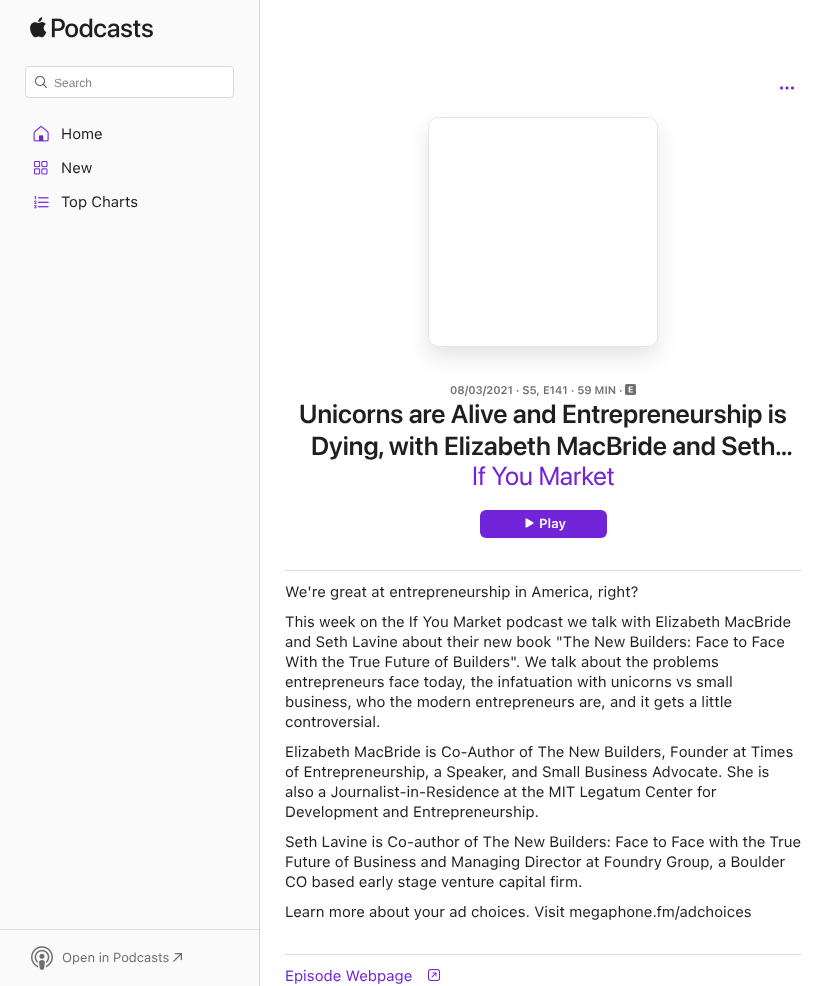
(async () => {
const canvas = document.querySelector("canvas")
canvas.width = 826
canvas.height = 986
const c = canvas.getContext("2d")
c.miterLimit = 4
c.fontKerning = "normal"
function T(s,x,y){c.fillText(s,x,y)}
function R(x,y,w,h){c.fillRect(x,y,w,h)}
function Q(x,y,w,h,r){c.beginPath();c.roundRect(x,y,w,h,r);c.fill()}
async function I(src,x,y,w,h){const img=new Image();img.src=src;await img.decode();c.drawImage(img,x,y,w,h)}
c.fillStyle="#fff"
R(0,0,826,986)
c.fillStyle="#fafafa"
R(0,0,259,986)
c.fillStyle="#e1e1e1"
R(0,929,260,1)
c.fillStyle="#d5d5d5"
R(259,0,1,986)
c.fillStyle="#c0c0c0"
R(259,929,1,1)
await I("1.png",30,17,123,21)
c.fillStyle="#fff"
c.beginPath()
c.roundRect(25.5,66.5,208,31,3.5)
c.fill()
c.strokeStyle="#d9d9d9"
c.stroke()
await I("2.png",35,76,12,12)
c.font="12px Liberation Sans"
c.fillStyle="#858585"
T("Search",54,87)
await I("3.png",33,126,16,16)
c.font="15px 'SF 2'"
c.fillStyle="#1f1f1f"
T("Home",61,139)
await I("4.png",34,161,14,14)
T("New",61,173)
await I("5.png",34,196,15,13)
T("Top Charts",61,207)
await I("6.png",31,946,22,24)
c.font="13px 'SF 2'"
c.fillStyle="#707070"
T("Open in Podcasts",62,962)
await I("7.png",173,953,9,9)
await I("8.png",780,86,14,4)
await I("9.png",625,384,11,11)
c.fillStyle="#0000001a"
c.filter="blur(10px)"
c.beginPath()
c.roundRect(428,127,230,230,10)
c.fill()
c.filter="none"
c.fillStyle="#fff"
Q(428,117,230,230,10)
c.beginPath()
c.roundRect(428.5,117.5,229,229,9.5)
c.strokeStyle="#0000001a"
c.stroke()
c.font="600 11px SF"
c.fillStyle="#707070"
T("08/03/2021 · S5, E141 · 59 MIN ·",450,394)
c.font="600 26px 'SF 2'"
c.fillStyle="#1f1f1f"
T("Unicorns are Alive and Entrepreneurship is",299,423)
T("Dying, with Elizabeth MacBride and Seth…",311,455)
c.font="26px SF"
c.fillStyle="#7224d8"
T("If You Market",472,485)
Q(480,510,127,28,6)
await I("10.png",525,518,9,10)
c.font="600 13px SF"
c.fillStyle="#fff"
T("Play",539,528)
c.fillStyle="#d9d9d9"
R(285,570,516,1)
c.font="15px 'SF 2'"
c.fillStyle="#1f1f1f"
T("We're great at entrepreneurship in America, right?",285,597)
T("This week on the If You Market podcast we talk with Elizabeth MacBride",285,627)
T("and Seth Lavine about their new book \"The New Builders: Face to Face",285,647)
T("With the True Future of Builders\". We talk about the problems",285,667)
T("entrepreneurs face today, the infatuation with unicorns vs small",285,687)
T("business, who the modern entrepreneurs are, and it gets a little",285,707)
T("controversial.",285,727)
T("Elizabeth MacBride is Co-Author of The New Builders, Founder at Times",285,757)
T("of Entrepreneurship, a Speaker, and Small Business Advocate. She is",285,777)
T("also a Journalist-in-Residence at the MIT Legatum Center for",285,797)
T("Development and Entrepreneurship.",285,817)
T("Seth Lavine is Co-author of The New Builders: Face to Face with the True",285,847)
T("Future of Business and Managing Director at Foundry Group, a Boulder",285,867)
T("CO based early stage venture capital firm.",285,887)
T("Learn more about your ad choices. Visit megaphone.fm/adchoices",285,917)
c.fillStyle="#d9d9d9"
R(285,954,516,1)
c.fillStyle="#7224d8"
T("Episode Webpage",285,981)
await I("11.png",428,969,13,12)
})()
